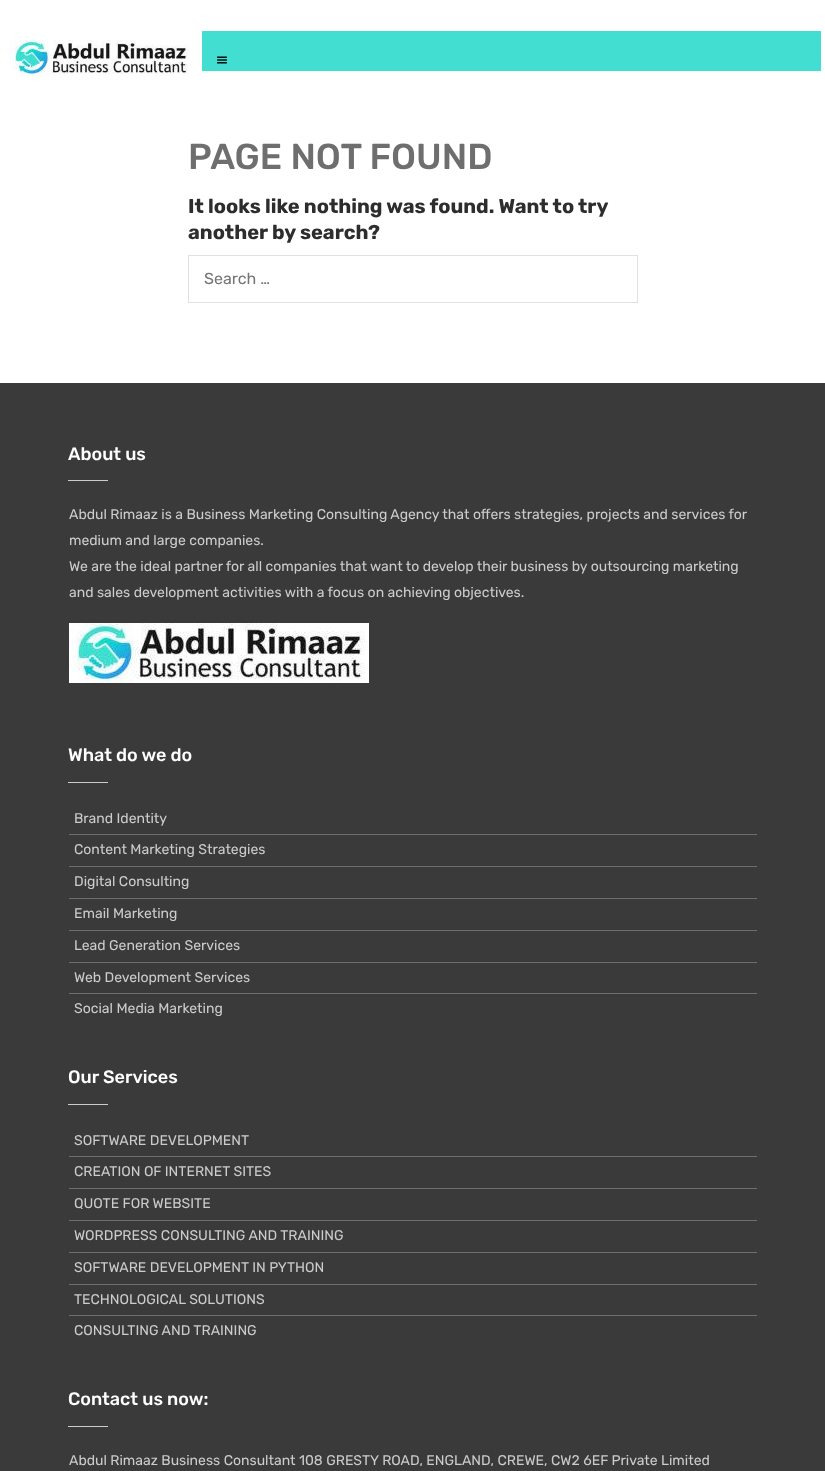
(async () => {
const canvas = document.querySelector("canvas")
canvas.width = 825
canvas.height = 1471
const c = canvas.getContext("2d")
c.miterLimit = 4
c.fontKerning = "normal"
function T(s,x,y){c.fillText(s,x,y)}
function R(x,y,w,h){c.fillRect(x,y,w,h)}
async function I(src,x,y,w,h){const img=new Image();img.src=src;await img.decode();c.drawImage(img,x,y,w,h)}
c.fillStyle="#fff"
R(0,0,825,1471)
await I("1.png",10,40,179,36)
c.fillStyle="#42ded2"
R(202,31,619,40)
await I("2.png",217,56,10,8)
c.font="500 36px Rubik"
c.fillStyle="#6e6e6e"
T("PAGE NOT FOUND",188,169)
c.font="bold 20px Rubik"
c.fillStyle="#2d2d2d"
T("It looks like nothing was found. Want to try",188,213)
T("another by search?",188,239)
c.strokeStyle="#e1e1e1"
c.strokeRect(188.5,255.5,449,47)
c.font="16px Rubik"
c.fillStyle="#757575"
T("Search …",204,284)
c.fillStyle="#3a3a3a"
R(0,383,825,1088)
c.font="500 18px Rubik"
c.fillStyle="#fff"
T("About us",68,460)
c.fillStyle="#ccc"
R(68,480,40,1)
c.font="14px Rubik"
T("Abdul Rimaaz is a Business Marketing Consulting Agency that offers strategies, projects and services for",69,519)
T("medium and large companies.",69,545)
T("We are the ideal partner for all companies that want to develop their business by outsourcing marketing",69,571)
T("and sales development activities with a focus on achieving objectives.",69,597)
await I("3.png",69,623,300,60)
c.font="500 18px Rubik"
c.fillStyle="#fff"
T("What do we do",68,761)
c.fillStyle="#ccc"
R(68,782,40,1)
c.font="14px Rubik"
T("Brand Identity",74,823)
c.fillStyle="#6e6e6e"
R(69,834,688,1)
c.fillStyle="#ccc"
T("Content Marketing Strategies",74,854)
c.fillStyle="#6e6e6e"
R(69,866,688,1)
c.fillStyle="#ccc"
T("Digital Consulting",74,886)
c.fillStyle="#6e6e6e"
R(69,898,688,1)
c.fillStyle="#ccc"
T("Email Marketing",74,918)
c.fillStyle="#6e6e6e"
R(69,930,688,1)
c.fillStyle="#ccc"
T("Lead Generation Services",74,950)
c.fillStyle="#6e6e6e"
R(69,962,688,1)
c.fillStyle="#ccc"
T("Web Development Services",74,982)
c.fillStyle="#6e6e6e"
R(69,993,688,1)
c.fillStyle="#ccc"
T("Social Media Marketing",74,1013)
c.font="500 18px Rubik"
c.fillStyle="#fff"
T("Our Services",68,1083)
c.fillStyle="#ccc"
R(68,1104,40,1)
c.font="14px Rubik"
T("SOFTWARE DEVELOPMENT",74,1145)
c.fillStyle="#6e6e6e"
R(69,1156,688,1)
c.fillStyle="#ccc"
T("CREATION OF INTERNET SITES",74,1176)
c.fillStyle="#6e6e6e"
R(69,1188,688,1)
c.fillStyle="#ccc"
T("QUOTE FOR WEBSITE",74,1208)
c.fillStyle="#6e6e6e"
R(69,1220,688,1)
c.fillStyle="#ccc"
T("WORDPRESS CONSULTING AND TRAINING",74,1240)
c.fillStyle="#6e6e6e"
R(69,1252,688,1)
c.fillStyle="#ccc"
T("SOFTWARE DEVELOPMENT IN PYTHON",74,1272)
c.fillStyle="#6e6e6e"
R(69,1284,688,1)
c.fillStyle="#ccc"
T("TECHNOLOGICAL SOLUTIONS",74,1304)
c.fillStyle="#6e6e6e"
R(69,1315,688,1)
c.fillStyle="#ccc"
T("CONSULTING AND TRAINING",74,1335)
c.font="500 18px Rubik"
c.fillStyle="#fff"
T("Contact us now:",68,1405)
c.fillStyle="#ccc"
R(68,1426,40,1)
c.font="14px Rubik"
T("Abdul Rimaaz Business Consultant 108 GRESTY ROAD, ENGLAND, CREWE, CW2 6EF Private Limited",69,1465)
})()
